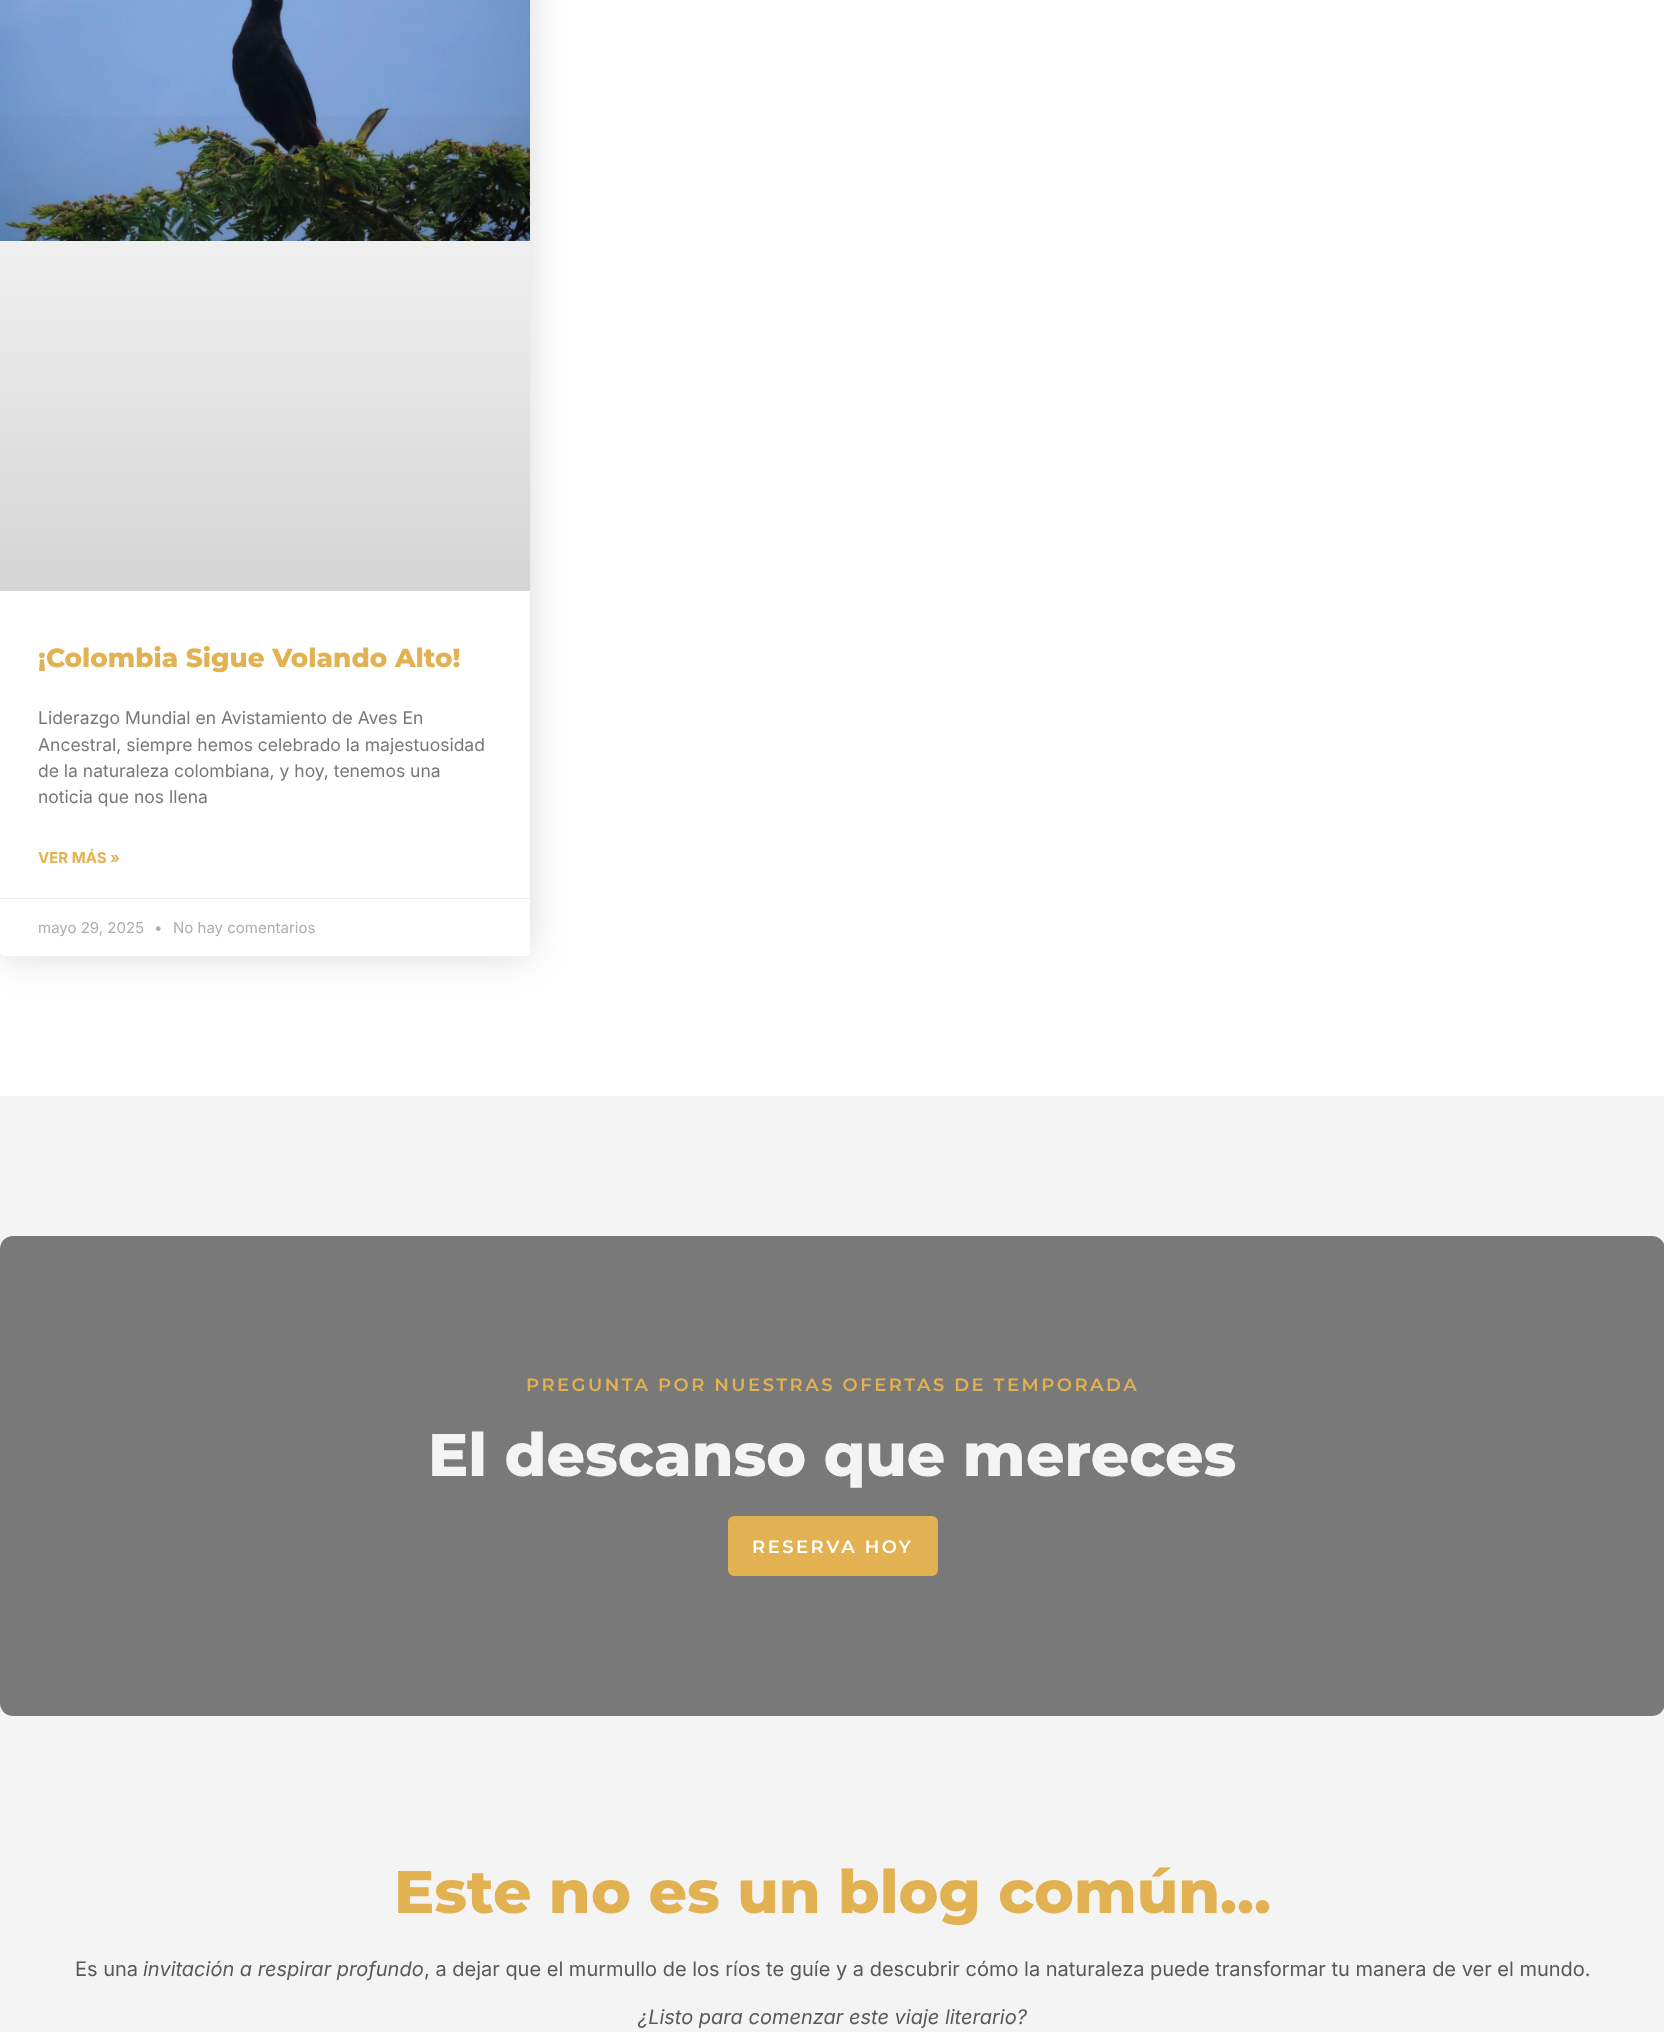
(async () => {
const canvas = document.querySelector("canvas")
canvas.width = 1664
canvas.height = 2032
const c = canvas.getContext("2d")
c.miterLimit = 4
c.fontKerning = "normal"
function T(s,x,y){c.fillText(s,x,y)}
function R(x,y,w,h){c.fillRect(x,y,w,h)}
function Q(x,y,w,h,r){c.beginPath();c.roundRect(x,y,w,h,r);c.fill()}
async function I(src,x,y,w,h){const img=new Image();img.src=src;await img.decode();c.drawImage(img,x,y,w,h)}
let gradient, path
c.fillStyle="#f4f4f4"
R(0,0,1664,2032)
c.fillStyle="#fff"
R(0,0,1664,1096)
c.save()
path = new Path2D("M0 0h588v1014h-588zm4-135h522c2 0 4 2 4 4v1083c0 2-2 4-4 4h-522c-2 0-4-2-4-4v-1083c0-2 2-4 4-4z")
c.clip(path,"evenodd")
c.fillStyle="#00000026"
c.filter="blur(19px)"
c.beginPath()
c.roundRect(0,-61,530,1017,4)
c.fill()
c.filter="none"
c.restore()
await I("1.png",0,0,530,241)
gradient = c.createLinearGradient(265,591,265,-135)
gradient.addColorStop(0,"#0000002b")
gradient.addColorStop(.75,"#00000000")
c.fillStyle = gradient
R(0,116,530,475)
c.font="800 26.25px Montserrat"
c.fillStyle="#e2b152"
T("¡Colombia Sigue Volando Alto!",38,667)
c.font="17.5px Inter"
c.fillStyle="#777"
T("Liderazgo Mundial en Avistamiento de Aves En",38,724)
T("Ancestral, siempre hemos celebrado la majestuosidad",38,751)
T("de la naturaleza colombiana, y hoy, tenemos una",38,777)
T("noticia que nos llena",38,803)
c.font="bold 15px Inter"
c.fillStyle="#e2b152"
T("VER MÁS »",38,863)
c.fillStyle="#eaeaea"
R(0,898,530,1)
c.font="15px Inter"
c.fillStyle="#adadad"
T("mayo 29, 2025",38,933)
T("•",154,933)
T("No hay comentarios",173,933)
c.fillStyle="#797979"
Q(0,1236,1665,480,13)
c.letterSpacing="2.5px"
c.font="600 18px Montserrat"
c.fillStyle="#e2b152"
T("PREGUNTA POR NUESTRAS OFERTAS DE TEMPORADA",526,1391)
c.letterSpacing="0px"
c.font="800 60px Montserrat"
c.fillStyle="#f4f4f4"
T("El descanso que mereces",428,1476)
c.fillStyle="#e2b152"
c.beginPath()
c.roundRect(729.5,1517.5,207,57,4.5)
c.fill()
c.strokeStyle="#e2b152"
c.lineWidth=3
c.stroke()
c.letterSpacing="2.5px"
c.font="600 18px Montserrat"
c.fillStyle="#fff"
T("RESERVA HOY",752,1553)
c.letterSpacing="0px"
c.font="800 60px Montserrat"
c.fillStyle="#e2b152"
T("Este no es un blog común...",394,1913)
c.font="20px Inter"
c.fillStyle="#595959"
T("Es una",75,1976)
c.font="italic 20px Inter"
T("invitación a respirar profundo",143,1976)
c.font="20px Inter"
T(", a dejar que el murmullo de los ríos te guíe y a descubrir cómo la naturaleza puede transformar tu manera de ver el mundo.",424,1976)
c.font="italic 20px Inter"
T("¿Listo para comenzar este viaje literario?",638,2024)
})()
